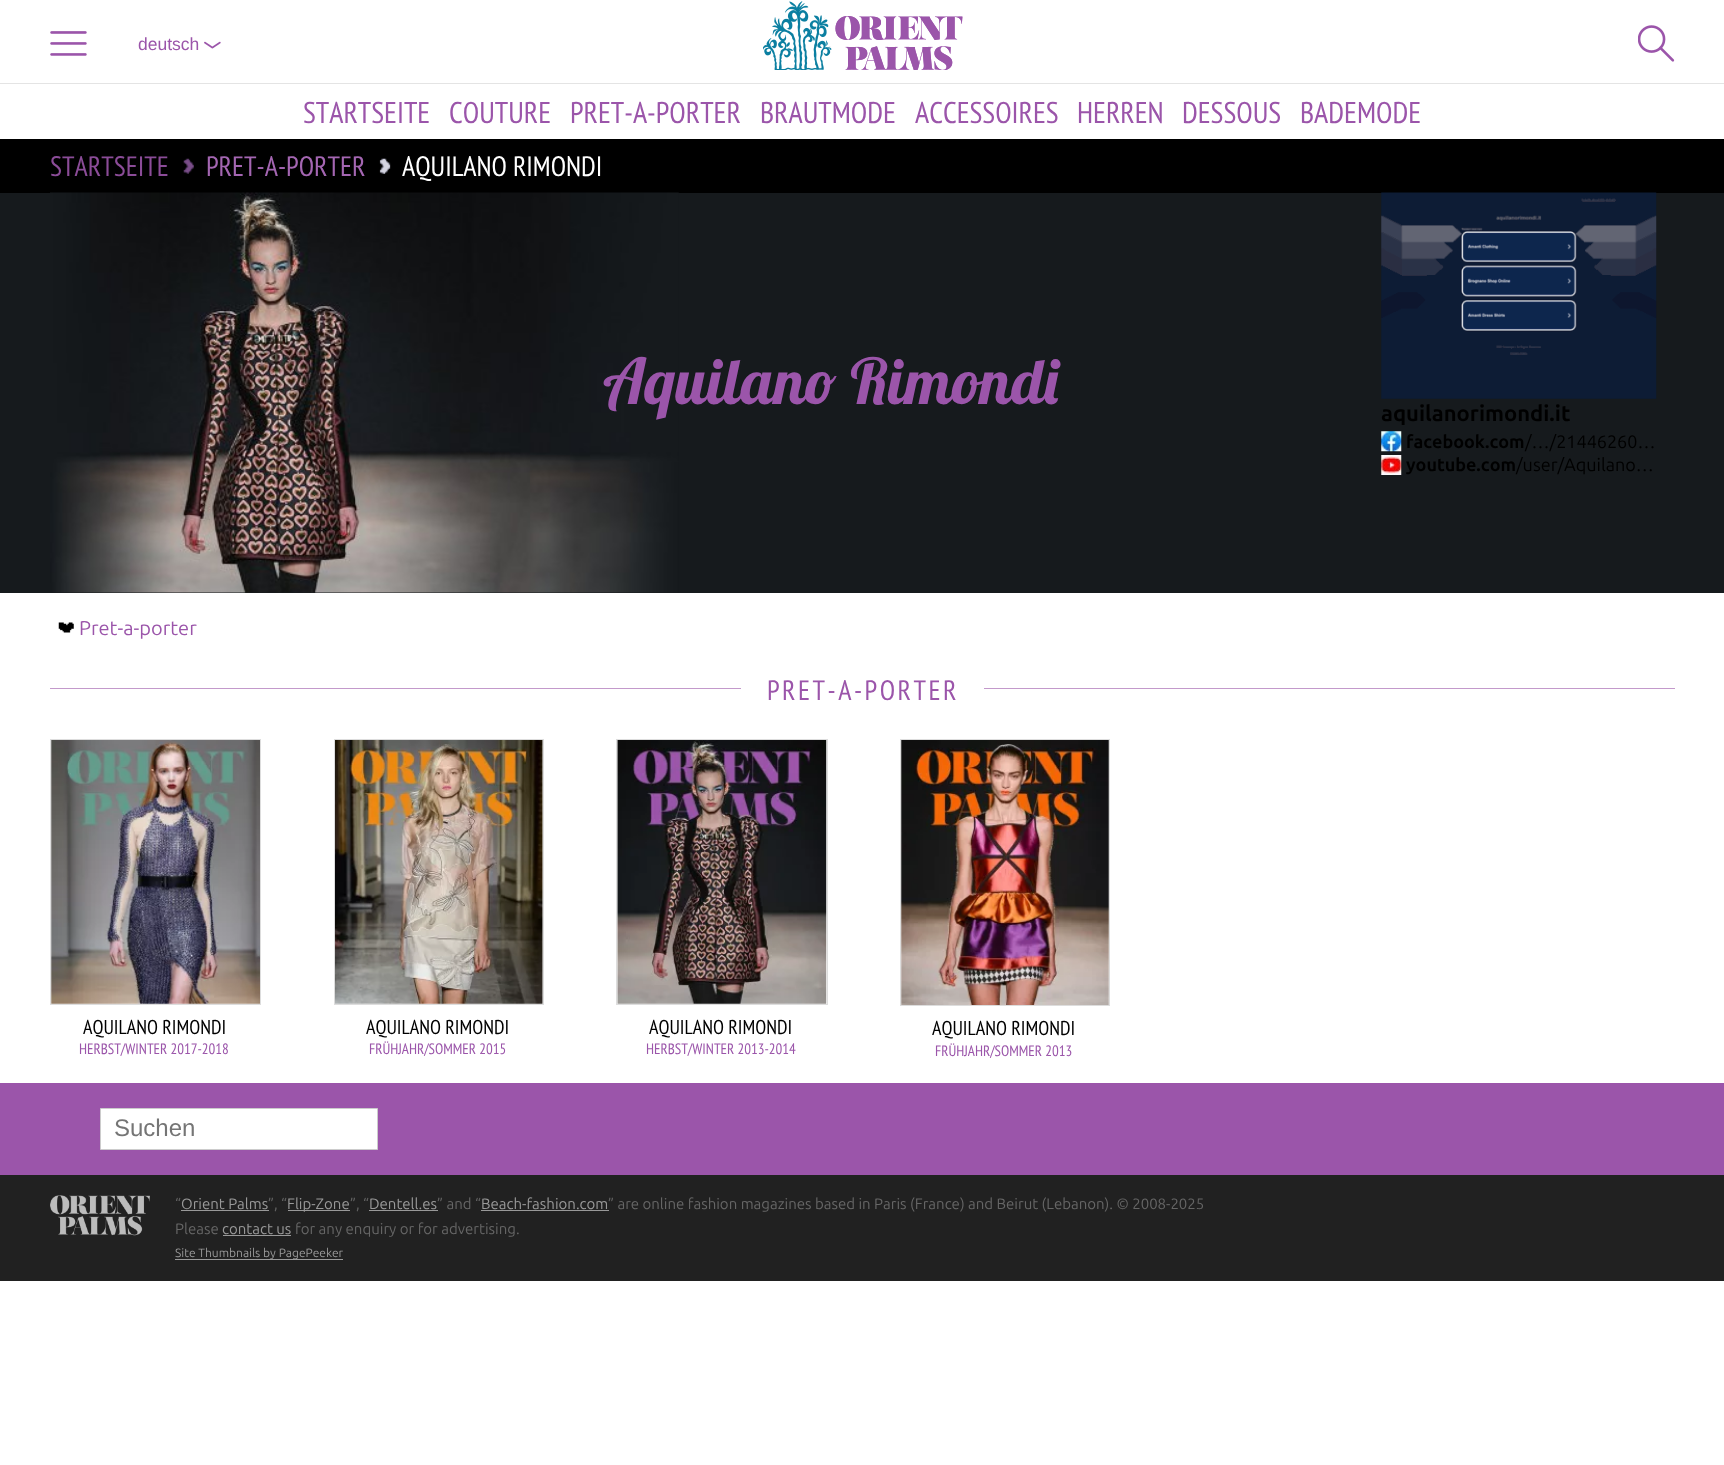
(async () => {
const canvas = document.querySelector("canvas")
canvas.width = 1724
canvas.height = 1465
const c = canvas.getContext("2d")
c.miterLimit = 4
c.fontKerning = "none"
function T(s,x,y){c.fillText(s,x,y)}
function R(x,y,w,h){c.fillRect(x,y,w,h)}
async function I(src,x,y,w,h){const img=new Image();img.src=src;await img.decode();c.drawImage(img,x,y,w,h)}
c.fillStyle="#fff"
R(0,0,1724,1465)
c.fillStyle="#e4e4e4"
R(0,83,1724,1)
await I("1.png",50,31,37,25)
c.font="17.5px Liberation Sans"
c.fillStyle="#9b55aa"
T("deutsch",138,50)
await I("2.png",204,41,17,8)
await I("3.png",763,1,200,69)
await I("4.png",1638,25,37,37)
c.font="30px PT Sans Narrow"
T("STARTSEITE",303,123)
T("COUTURE",449,123)
T("PRET-A-PORTER",570,123)
T("BRAUTMODE",760,123)
T("ACCESSOIRES",915,123)
T("HERREN",1077,123)
T("DESSOUS",1182,123)
T("BADEMODE",1300,123)
c.fillStyle="#000"
R(0,139,1724,54)
c.font="28px PT Sans Narrow"
c.fillStyle="#8b4c98"
T("STARTSEITE",50,176)
await I("5.png",183,158,11,16)
c.fillStyle="#a466b2"
T("PRET-A-PORTER",206,176)
await I("6.png",379,158,12,16)
c.fillStyle="#fff"
T("AQUILANO RIMONDI",402,176)
c.fillStyle="#161a1d"
R(0,193,1724,400)
await I("7.png",50,192,629,401)
c.font="63px 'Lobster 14'"
c.fillStyle="#9b55aa"
T("Aquilano Rimondi",603,404)
await I("8.png",1381,192,276,207)
c.font="bold 22px Ubuntu"
c.fillStyle="#000"
T("aquilanorimondi.it",1381,421)
await I("9.png",1381,431,21,21)
c.font="bold 18px Ubuntu"
T("facebook.com",1406,448)
c.font="18px Ubuntu"
T("/…/21446260…",1525,448)
await I("10.png",1381,455,21,20)
c.font="bold 18px Ubuntu"
T("youtube.com",1406,471)
c.font="18px Ubuntu"
T("/user/Aquilano…",1516,471)
await I("11.png",58,622,16,11)
c.font="20px Ubuntu"
c.fillStyle="#9b55aa"
T("Pret-a-porter",79,635)
c.fillStyle="#c399cb"
R(50,688,1625,1)
c.fillStyle="#fff"
R(741,688,243,1)
c.letterSpacing="2.5px"
c.font="28px PT Sans Narrow"
c.fillStyle="#9b55aa"
T("PRET-A-PORTER",767,700)
c.strokeStyle="#ddd"
c.strokeRect(50.5,739.5,210,265)
await I("12.png",51,740,209,264)
c.letterSpacing="0px"
c.font="20px PT Sans Narrow"
c.fillStyle="#000"
T("AQUILANO RIMONDI",83,1034)
c.font="15px PT Sans Narrow"
c.fillStyle="#9b55aa"
T("HERBST/WINTER 2017-2018",79,1054)
c.strokeRect(334.5,739.5,209,265)
await I("13.png",335,740,208,264)
c.font="20px PT Sans Narrow"
c.fillStyle="#000"
T("AQUILANO RIMONDI",366,1034)
c.font="15px PT Sans Narrow"
c.fillStyle="#9b55aa"
T("FRÜHJAHR/SOMMER 2015",369,1054)
c.strokeRect(616.5,739.5,211,265)
await I("14.png",617,740,210,264)
c.font="20px PT Sans Narrow"
c.fillStyle="#000"
T("AQUILANO RIMONDI",649,1034)
c.font="15px PT Sans Narrow"
c.fillStyle="#9b55aa"
T("HERBST/WINTER 2013-2014",646,1054)
c.strokeRect(900.5,739.5,209,266)
await I("15.png",901,740,208,265)
c.font="20px PT Sans Narrow"
c.fillStyle="#000"
T("AQUILANO RIMONDI",932,1035)
c.font="15px PT Sans Narrow"
c.fillStyle="#9b55aa"
T("FRÜHJAHR/SOMMER 2013",935,1056)
R(0,1083,1724,92)
c.fillStyle="#fff"
c.beginPath()
c.rect(100.5,1108.5,277,41)
c.fill()
c.strokeStyle="#ccc"
c.stroke()
c.font="24px Liberation Sans"
c.fillStyle="#757575"
T("Suchen",114,1136)
c.fillStyle="#212121"
R(0,1175,1724,106)
await I("16.png",50,1195,100,41)
c.font="15px Ubuntu"
c.fillStyle="#666"
T("“",175,1209)
c.fillStyle="#999"
T("Orient Palms",181,1209)
R(181,1210,88,1)
c.fillStyle="#666"
T("”, “",268,1209)
c.fillStyle="#999"
R(288,1210,62,1)
T("Flip-Zone",287,1209)
c.fillStyle="#666"
T("”, “",350,1209)
c.fillStyle="#999"
T("Dentell.es",369,1209)
R(369,1210,69,1)
c.fillStyle="#666"
T("” and “",437,1209)
c.fillStyle="#999"
T("Beach-fashion.com",481,1209)
R(481,1210,128,1)
c.fillStyle="#666"
T("” are online fashion magazines based in Paris (France) and Beirut (Lebanon). © 2008-2025",608,1209)
T("Please",175,1234)
c.fillStyle="#999"
T("contact us",222,1234)
R(223,1235,68,1)
c.fillStyle="#666"
T("for any enquiry or for advertising.",295,1234)
c.fillStyle="#999"
R(175,1259,168,1)
c.font="12px Ubuntu"
T("Site Thumbnails by PagePeeker",175,1257)
})()
